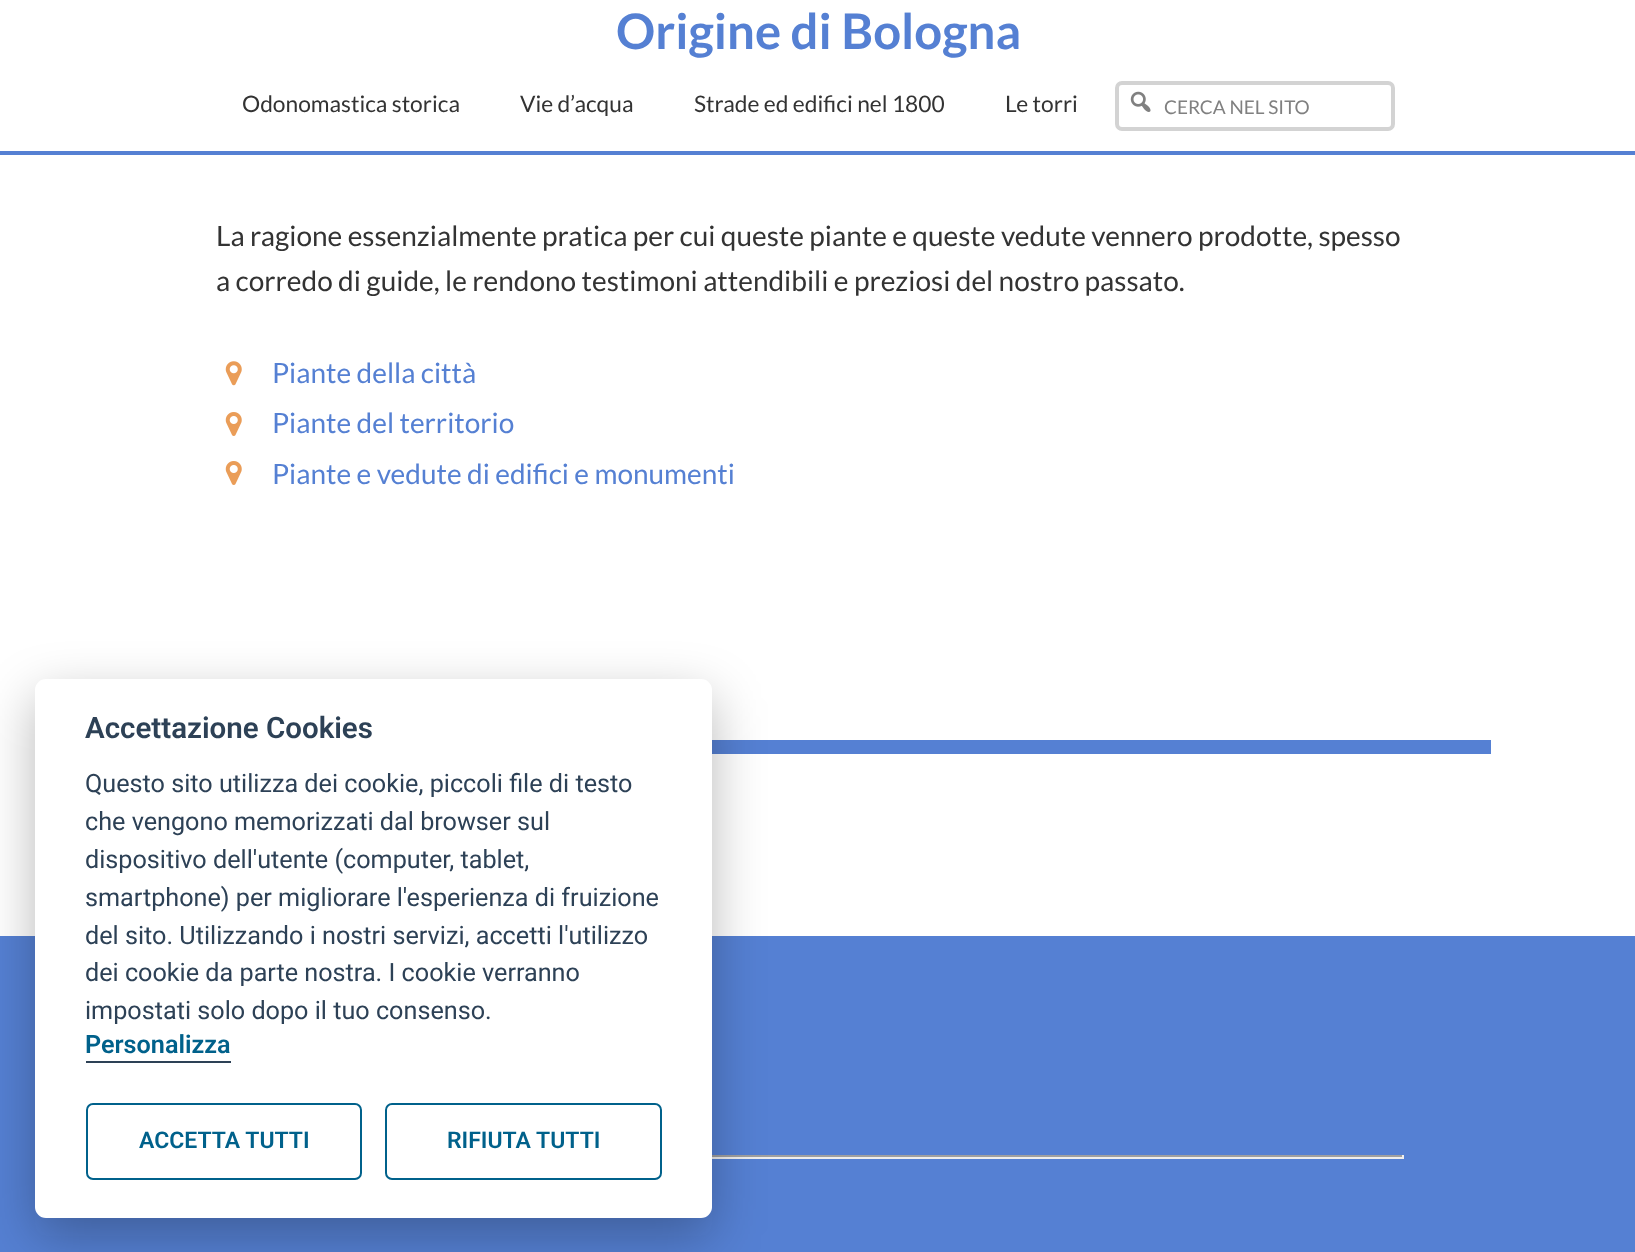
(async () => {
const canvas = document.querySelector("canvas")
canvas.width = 1635
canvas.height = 1252
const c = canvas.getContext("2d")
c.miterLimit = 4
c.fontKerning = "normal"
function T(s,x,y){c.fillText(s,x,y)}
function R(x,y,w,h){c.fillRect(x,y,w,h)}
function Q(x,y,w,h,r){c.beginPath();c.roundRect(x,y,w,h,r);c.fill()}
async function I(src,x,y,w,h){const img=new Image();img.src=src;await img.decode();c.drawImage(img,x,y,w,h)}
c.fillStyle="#fff"
R(0,0,1635,1252)
c.fillStyle="#5580d3"
R(0,151,1635,4)
c.font="bold 49px Lato"
T("Origine di Bologna",616,49)
c.font="22.75px Lato"
c.fillStyle="#333"
T("Odonomastica storica",242,112)
T("Vie d’acqua",520,112)
T("Strade ed edifici nel 1800",694,112)
T("Le torri",1005,112)
c.beginPath()
c.roundRect(1117,83,276,46,5)
c.strokeStyle="#d3d3d3"
c.lineWidth=4
c.stroke()
await I("1.png",1130,91,21,21)
c.font="19px Lato"
c.fillStyle="#808080"
T("CERCA NEL SITO",1164,114)
c.font="28px Lato"
c.fillStyle="#333"
T("La ragione essenzialmente pratica per cui queste piante e queste vedute vennero prodotte, spesso",216,246)
T("a corredo di guide, le rendono testimoni attendibili e preziosi del nostro passato.",216,291)
await I("2.png",225,361,17,25)
c.fillStyle="#5580d3"
T("Piante della città",272,383)
await I("3.png",225,412,17,24)
T("Piante del territorio",272,433)
await I("3.png",225,461,17,24)
T("Piante e vedute di edifici e monumenti",272,484)
R(712,740,779,14)
R(0,936,1635,316)
c.fillStyle="#9f9f9f"
R(712,1155,692,2)
c.fillStyle="#eee"
R(1402,1155,2,4)
R(712,1157,692,2)
c.fillStyle="#02020347"
c.filter="blur(26px)"
c.beginPath()
c.roundRect(35,697,677,539,11)
c.fill()
c.filter="none"
c.fillStyle="#fff"
Q(35,679,677,539,11)
c.font="600 29.5px Roboto"
c.fillStyle="#2d4156"
T("Accettazione Cookies",85,738)
c.font="25.2px Roboto"
T("Questo sito utilizza dei cookie, piccoli file di testo",85,792)
T("che vengono memorizzati dal browser sul",85,830)
T("dispositivo dell'utente (computer, tablet,",85,868)
T("smartphone) per migliorare l'esperienza di fruizione",85,906)
T("del sito. Utilizzando i nostri servizi, accetti l'utilizzo",85,944)
T("dei cookie da parte nostra. I cookie verranno",85,981)
T("impostati solo dopo il tuo consenso.",85,1019)
R(86,1061,145,2)
c.font="600 25.2px Roboto"
c.fillStyle="#00618b"
T("Personalizza",85,1053)
c.beginPath()
c.roundRect(87,1104,274,75,6)
c.strokeStyle="#00618b"
c.lineWidth=2
c.stroke()
c.font="600 23px Roboto"
T("ACCETTA TUTTI",139,1148)
c.beginPath()
c.roundRect(386,1104,275,75,6)
c.stroke()
T("RIFIUTA TUTTI",447,1148)
})()
